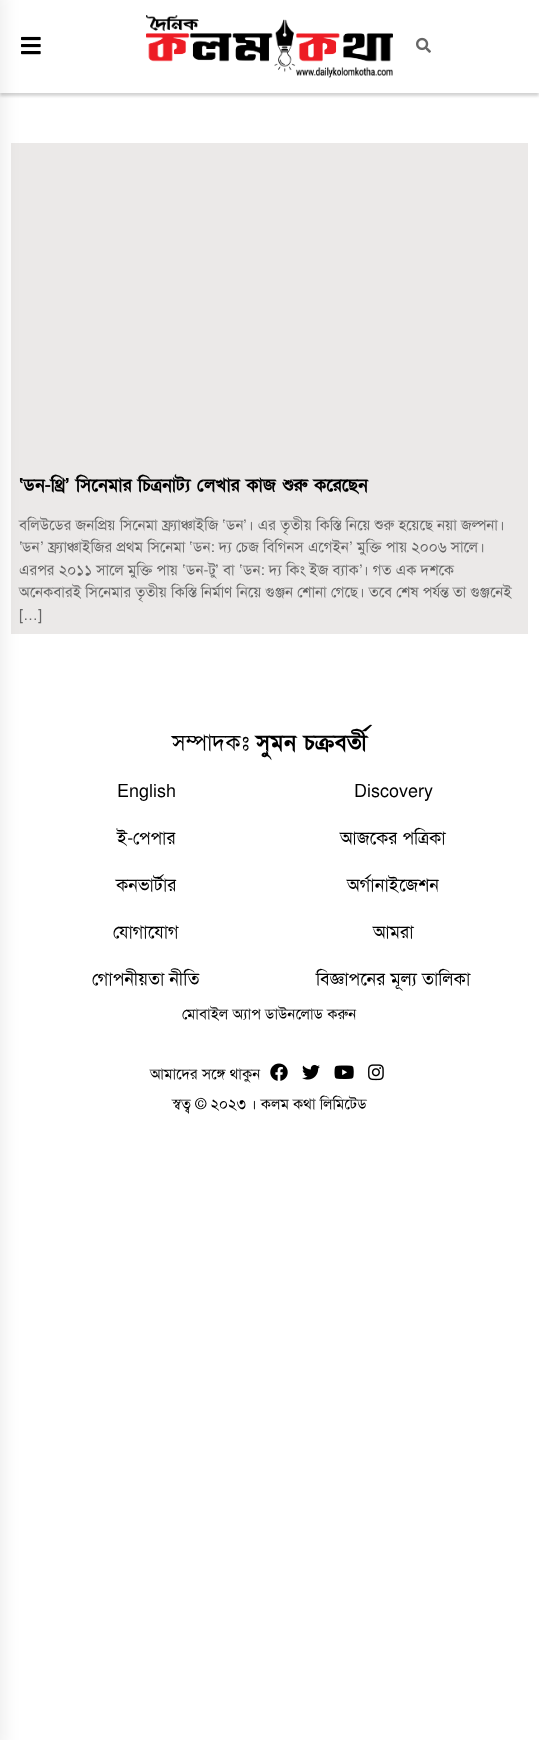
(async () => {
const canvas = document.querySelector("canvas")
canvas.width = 539
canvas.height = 1740
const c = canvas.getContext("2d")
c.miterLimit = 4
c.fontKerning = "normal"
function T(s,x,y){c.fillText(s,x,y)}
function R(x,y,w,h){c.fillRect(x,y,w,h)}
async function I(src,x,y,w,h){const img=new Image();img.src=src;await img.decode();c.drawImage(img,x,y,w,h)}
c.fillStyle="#fff"
R(0,0,539,1740)
c.save()
c.beginPath()
c.rect(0,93,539,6)
c.clip()
c.fillStyle="#d3d3d3"
c.filter="blur(1.5px)"
c.beginPath()
c.rect(0,3,539,93)
c.fill()
c.filter="none"
c.restore()
await I("1.png",21,36,20,19)
await I("2.png",146,15,247,63)
await I("3.png",416,37,15,16)
c.fillStyle="#ebe9e8"
R(11,143,517,491)
c.fillStyle="#0000001a"
c.filter="blur(10px)"
c.beginPath()
c.rect(-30,-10,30,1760)
c.fill()
c.filter="none"
c.font="bold 18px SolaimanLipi"
c.fillStyle="#000"
T("‘ডন-থ্রি’ সিনেমার চিত্রনাট্য লেখার কাজ শুরু করেছেন",19,491)
c.font="15px SolaimanLipi"
c.fillStyle="#666"
T("বলিউডের জনপ্রিয় সিনেমা ফ্র্যাঞ্চাইজি",19,530)
c.font="15px 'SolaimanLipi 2'"
T("‘",222,530)
c.font="15px SolaimanLipi"
T("ডন",226,530)
c.font="15px 'SolaimanLipi 2'"
T("’",243,530)
c.font="15px SolaimanLipi"
T("। এর তৃতীয় কিস্তি নিয়ে শুরু হয়েছে নয়া জল্পনা।",247,530)
c.font="15px 'SolaimanLipi 2'"
T("‘",19,552)
T("’",40,552)
c.font="15px SolaimanLipi"
T("ফ্র্যাঞ্চাইজির প্রথম সিনেমা",48,552)
c.font="15px 'SolaimanLipi 2'"
T("‘",189,552)
c.font="15px SolaimanLipi"
T("ডন: দ্য চেজ বিগিনস এগেইন",193,552)
c.font="15px 'SolaimanLipi 2'"
T("’",349,552)
c.font="15px SolaimanLipi"
T("মুক্তি পায় ২০০৬ সালে।",357,552)
T("ডন",22,552)
T("এরপর ২০১১ সালে মুক্তি পায়",19,575)
c.font="15px 'SolaimanLipi 2'"
T("‘",182,575)
c.font="15px SolaimanLipi"
T("ডন-টু",186,575)
c.font="15px 'SolaimanLipi 2'"
T("’",215,575)
c.font="15px SolaimanLipi"
T("বা",223,575)
c.font="15px 'SolaimanLipi 2'"
T("‘",239,575)
c.font="15px SolaimanLipi"
T("ডন: দ্য কিং ইজ ব্যাক",243,575)
c.font="15px 'SolaimanLipi 2'"
T("’",359,575)
c.font="15px SolaimanLipi"
T("। গত এক দশকে",362,575)
T("অনেকবারই সিনেমার তৃতীয় কিস্তি নির্মাণ নিয়ে গুঞ্জন শোনা গেছে। তবে শেষ পর্যন্ত তা গুঞ্জনেই",19,597)
T("[",19,620)
c.font="15px Liberation Sans"
T("…",23,620)
c.font="15px SolaimanLipi"
T("]",38,620)
c.font="22.5px SolaimanLipi"
c.fillStyle="#000"
T("সম্পাদকঃ",172,750)
c.font="bold 22.5px SolaimanLipi"
T("সুমন চক্রবর্তী",256,750)
c.font="18px SolaimanLipi"
T("English",117,797)
T("Discovery",354,797)
T("ই-পেপার",117,844)
T("আজকের পত্রিকা",340,844)
T("কনভার্টার",116,891)
T("অর্গানাইজেশন",347,891)
T("যোগাযোগ",113,938)
T("আমরা",373,938)
T("গোপনীয়তা নীতি",92,985)
T("বিজ্ঞাপনের মূল্য তালিকা",316,985)
c.font="15px SolaimanLipi"
T("মোবাইল অ্যাপ ডাউনলোড করুন",182,1019)
T("আমাদের সঙ্গে থাকুন",150,1079)
await I("4.png",270,1063,18,18)
await I("5.png",302,1064,18,16)
await I("6.png",334,1065,20,14)
await I("7.png",368,1064,16,17)
T("স্বত্ব © ২০২৩ । কলম কথা লিমিটেড",172,1109)
})()
